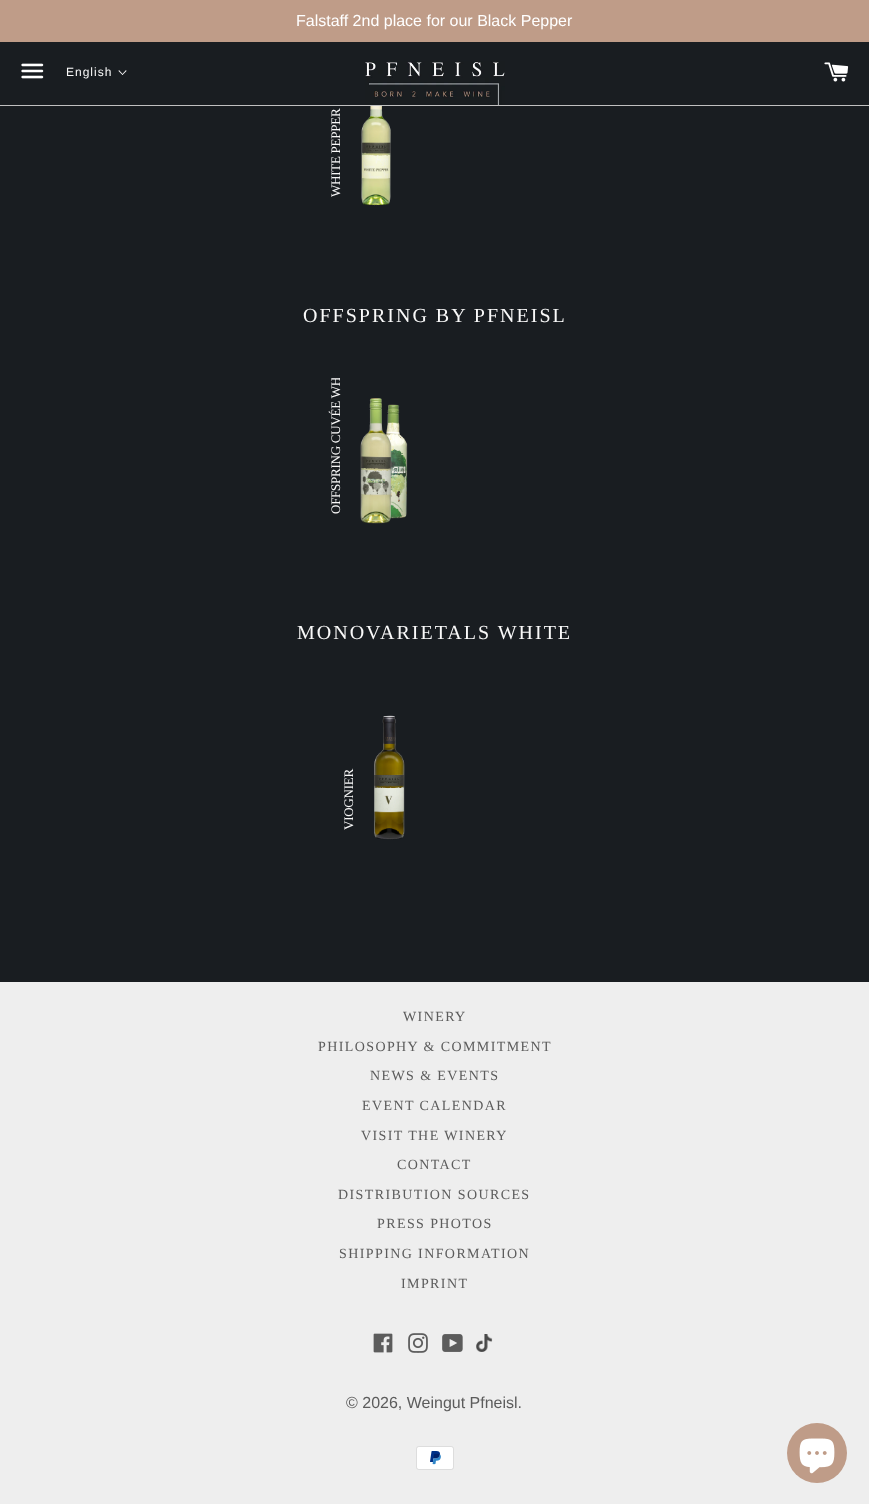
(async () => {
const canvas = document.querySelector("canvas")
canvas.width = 869
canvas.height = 1504
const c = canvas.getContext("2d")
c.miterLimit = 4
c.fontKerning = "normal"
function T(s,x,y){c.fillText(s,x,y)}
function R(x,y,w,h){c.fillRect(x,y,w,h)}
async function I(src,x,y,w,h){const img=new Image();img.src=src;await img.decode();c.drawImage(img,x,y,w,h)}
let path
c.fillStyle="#191d21"
R(0,0,869,1504)
c.fillStyle="#bf9c88"
R(0,0,869,42)
c.font="16px Liberation Sans"
c.fillStyle="#fff"
T("Falstaff 2nd place for our Black Pepper",296,26)
c.fillStyle="#c0c0c0"
R(0,105,869,1)
await I("1.png",21,63,23,16)
c.letterSpacing="1px"
c.font="12px Liberation Sans"
c.fillStyle="#f9f9f9"
T("English",66,76)
path = new Path2D("M126 70l.5 1l-4 4l-.5-.5z")
c.fill(path)
path = new Path2D("M119 70l4 4.5l-.5 .5l-4-4z")
c.fill(path)
await I("2.png",365,61,140,44)
await I("3.png",824,62,25,20)
c.letterSpacing="-0.25px"
c.font="13px Liberation Serif"
c.save()
c.translate(340,197)
c.rotate(-90 * Math.PI / 180)
c.fillText("WHITE PEPPER",0,0)
c.restore()
await I("4.png",361,106,30,100)
c.letterSpacing="2px"
c.font="20px Liberation Serif"
T("OFFSPRING BY PFNEISL",303,322)
c.save()
c.beginPath()
c.rect(0,378,836,240)
c.clip()
c.letterSpacing="-0.25px"
c.font="13px Liberation Serif"
c.save()
c.translate(340,514)
c.rotate(-90 * Math.PI / 180)
c.fillText("OFFSPRING CUVÉE WHITE",0,0)
c.restore()
c.restore()
await I("5.png",360,398,48,126)
T("MONOVARIETALS WHITE",297,639)
c.letterSpacing="-0.25px"
c.font="13px Liberation Serif"
c.save()
c.translate(353,830)
c.rotate(-90 * Math.PI / 180)
c.fillText("VIOGNIER",0,0)
c.restore()
await I("6.png",374,715,31,125)
c.fillStyle="#eee"
R(0,982,869,522)
c.letterSpacing="1.4px"
c.font="14px Liberation Serif"
c.fillStyle="#5c5c5c"
T("WINERY",403,1021)
T("PHILOSOPHY & COMMITMENT",318,1051)
T("NEWS & EVENTS",370,1080)
T("EVENT CALENDAR",362,1110)
T("VISIT THE WINERY",361,1140)
T("CONTACT",397,1169)
T("DISTRIBUTION SOURCES",338,1199)
T("PRESS PHOTOS",377,1228)
T("SHIPPING INFORMATION",339,1258)
T("IMPRINT",401,1288)
await I("7.png",373,1333,20,20)
await I("8.png",408,1333,20,20)
await I("9.png",442,1334,21,18)
await I("10.png",476,1334,17,18)
c.letterSpacing="0px"
c.font="16px Liberation Sans"
T("© 2026, Weingut Pfneisl.",346,1408)
await I("11.png",416,1446,38,24)
c.fillStyle="#bf9c88"
c.beginPath()
c.arc(817,1453,30,0,7)
c.fill()
await I("12.png",799,1438,36,36)
})()
